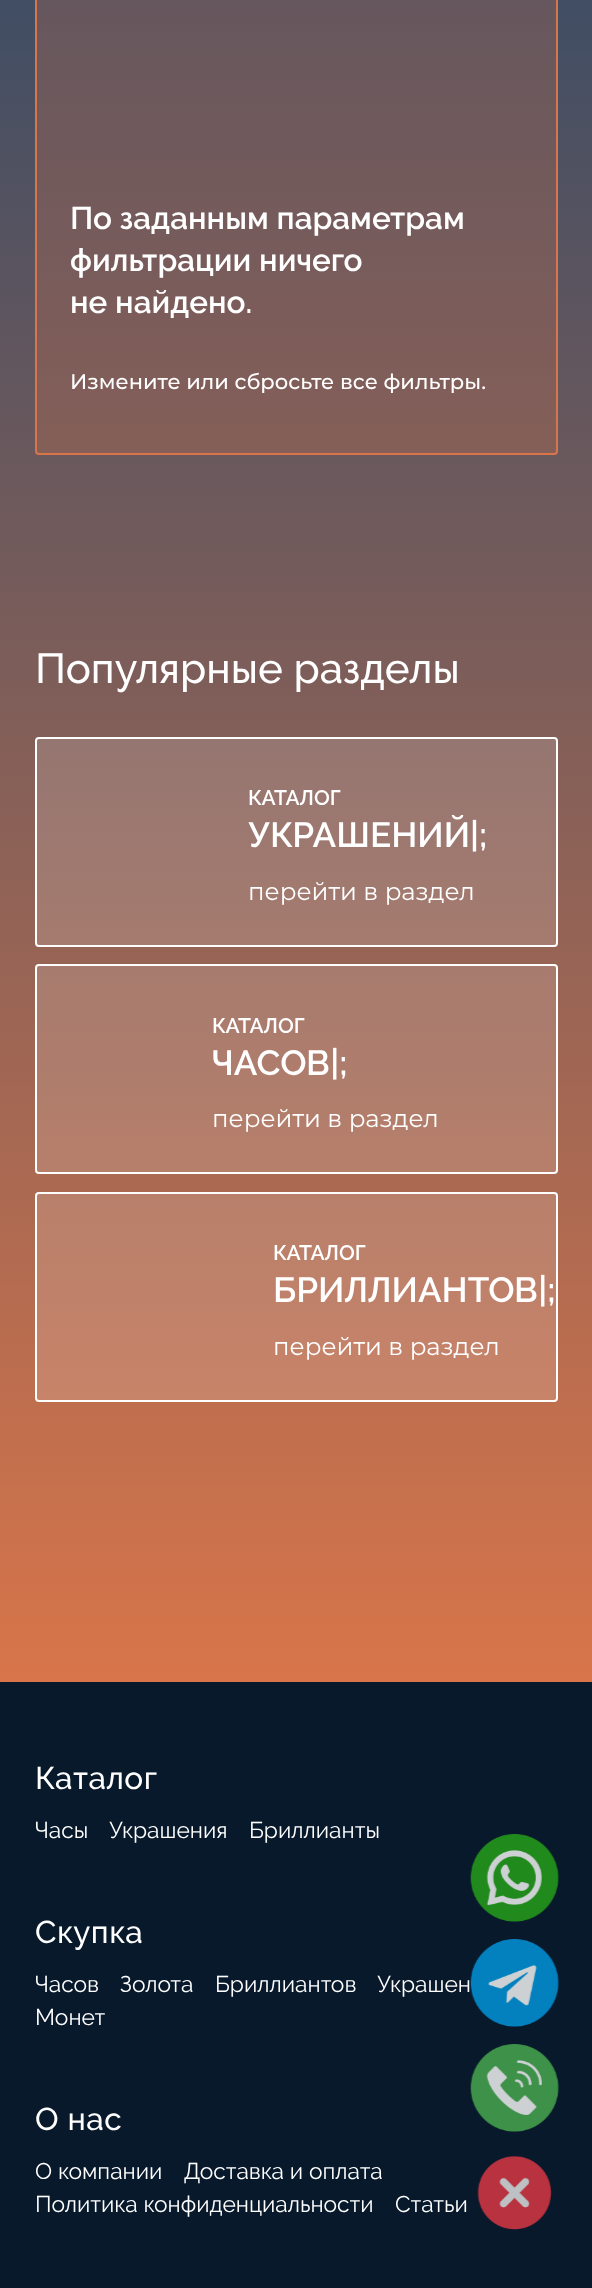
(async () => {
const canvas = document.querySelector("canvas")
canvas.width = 592
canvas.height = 2288
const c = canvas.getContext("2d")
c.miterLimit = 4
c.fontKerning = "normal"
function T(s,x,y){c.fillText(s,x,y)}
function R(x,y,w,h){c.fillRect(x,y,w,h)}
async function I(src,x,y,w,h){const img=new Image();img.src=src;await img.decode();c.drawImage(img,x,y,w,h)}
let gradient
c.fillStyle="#fff"
R(0,0,592,2288)
gradient = c.createLinearGradient(297,1682,297,-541)
gradient.addColorStop(0,"#d8754a")
gradient.addColorStop(1,"#10416c")
c.fillStyle = gradient
R(0,0,592,1682)
c.fillStyle="#d8754a40"
c.beginPath()
c.roundRect(36,-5,521,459,3)
c.fill()
c.strokeStyle="#d8754a"
c.lineWidth=2
c.stroke()
c.font="600 31.5px Raleway"
c.fillStyle="#fff"
T("По заданным параметрам",70,229)
T("фильтрации ничего",70,271)
T("не найдено.",70,313)
c.font="500 21px Montserrat"
T("Измените или сбросьте все фильтры.",70,389)
c.font="500 42px Raleway"
T("Популярные разделы",35,683)
c.fillStyle="#ffffff26"
c.beginPath()
c.roundRect(36,738,521,208,3)
c.fill()
c.strokeStyle="#fff"
c.stroke()
c.font="600 21px Raleway"
c.fillStyle="#fff"
T("КАТАЛОГ",248,805)
c.font="600 35px Raleway"
T("УКРАШЕНИЙ|;",248,847)
c.font="24.5px Montserrat"
T("перейти в раздел",248,900)
c.fillStyle="#ffffff26"
c.beginPath()
c.roundRect(36,965,521,208,3)
c.fill()
c.stroke()
c.font="600 21px Raleway"
c.fillStyle="#fff"
T("КАТАЛОГ",212,1033)
c.font="600 35px Raleway"
T("ЧАСОВ|;",212,1075)
c.font="24.5px Montserrat"
T("перейти в раздел",212,1127)
c.fillStyle="#ffffff26"
c.beginPath()
c.roundRect(36,1193,521,208,3)
c.fill()
c.stroke()
c.font="600 21px Raleway"
c.fillStyle="#fff"
T("КАТАЛОГ",273,1260)
c.font="600 35px Raleway"
T("БРИЛЛИАНТОВ|;",273,1302)
c.font="24.5px Montserrat"
T("перейти в раздел",273,1355)
c.fillStyle="#08192b"
R(0,1682,592,606)
c.letterSpacing="0.5px"
c.font="500 31.5px Raleway"
c.fillStyle="#fff"
T("Каталог",35,1789)
c.letterSpacing="0px"
c.font="22.75px Raleway"
T("Часы",35,1838)
T("Украшения",109,1838)
T("Бриллианты",249,1838)
c.letterSpacing="0.5px"
c.font="500 31.5px Raleway"
T("Скупка",35,1943)
c.letterSpacing="0px"
c.font="22.75px Raleway"
T("Часов",35,1992)
T("Золота",120,1992)
T("Бриллиантов",215,1992)
T("Украшен",377,1992)
T("Монет",35,2025)
c.letterSpacing="0.5px"
c.font="500 31.5px Raleway"
T("О нас",35,2130)
c.letterSpacing="0px"
c.font="22.75px Raleway"
T("О компании",35,2179)
T("Доставка и оплата",184,2179)
T("Политика конфиденциальности",35,2212)
T("Статьи",395,2212)
await I("1.png",470,1834,89,88)
await I("2.png",470,1939,89,88)
await I("3.png",470,2044,89,88)
await I("4.png",477,2156,75,74)
})()
